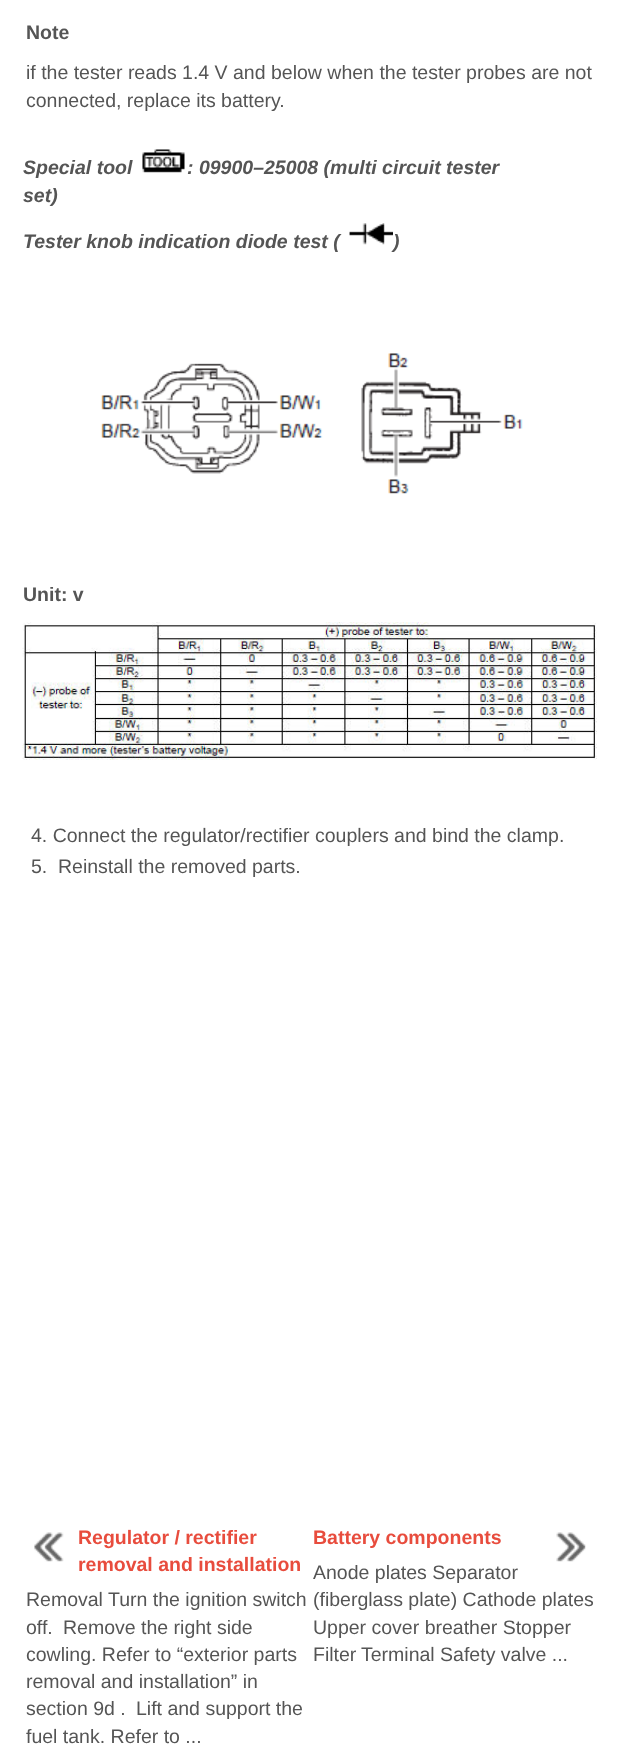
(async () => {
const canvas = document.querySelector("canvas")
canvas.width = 619
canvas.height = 1760
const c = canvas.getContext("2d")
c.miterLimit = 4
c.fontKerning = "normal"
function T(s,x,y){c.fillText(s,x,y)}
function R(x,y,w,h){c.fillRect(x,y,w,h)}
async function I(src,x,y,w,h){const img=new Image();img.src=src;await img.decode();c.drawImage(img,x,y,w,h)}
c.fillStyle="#fff"
R(0,0,619,1760)
c.font="bold 19.5px Liberation Sans"
c.fillStyle="#555"
T("Note",26,39)
c.font="19.5px Liberation Sans"
T("if the tester reads 1.4 V and below when the tester probes are not",26,79)
T("connected, replace its battery.",26,107)
c.font="italic bold 19.5px Liberation Sans"
T("Special tool",23,174)
await I("1.png",142,149,43,24)
T(": 09900–25008 (multi circuit tester",187,174)
T("set)",23,202)
T("Tester knob indication diode test (",23,248)
await I("2.png",349,223,44,22)
T(")",393,248)
await I("3.png",100,353,423,141)
c.font="bold 19.5px Liberation Sans"
T("Unit: v",23,601)
await I("4.png",22,622,575,138)
c.font="19.5px Liberation Sans"
T("4. Connect the regulator/rectifier couplers and bind the clamp.",31,842)
T("5.",31,873)
T("Reinstall the removed parts.",58,873)
await I("5.png",34,1532,30,30)
c.font="bold 19.5px Liberation Sans"
c.fillStyle="#e84c3d"
T("Regulator / rectifier",78,1544)
T("removal and installation",78,1571)
c.font="19.5px Liberation Sans"
c.fillStyle="#555"
T("Removal",26,1606)
T("Turn the ignition switch",108,1606)
T("off.",26,1634)
T("Remove the right side",63,1634)
T("cowling. Refer to “exterior parts",26,1661)
T("removal and installation” in",26,1688)
T("section 9d .",26,1715)
T("Lift and support the",136,1715)
T("fuel tank. Refer to ...",26,1743)
c.font="bold 19.5px Liberation Sans"
c.fillStyle="#e84c3d"
T("Battery components",313,1544)
await I("6.png",556,1532,30,30)
c.font="19.5px Liberation Sans"
c.fillStyle="#555"
T("Anode plates Separator",313,1579)
T("(fiberglass plate) Cathode plates",313,1606)
T("Upper cover breather Stopper",313,1634)
T("Filter",313,1661)
T("Terminal Safety valve ...",361,1661)
})()
